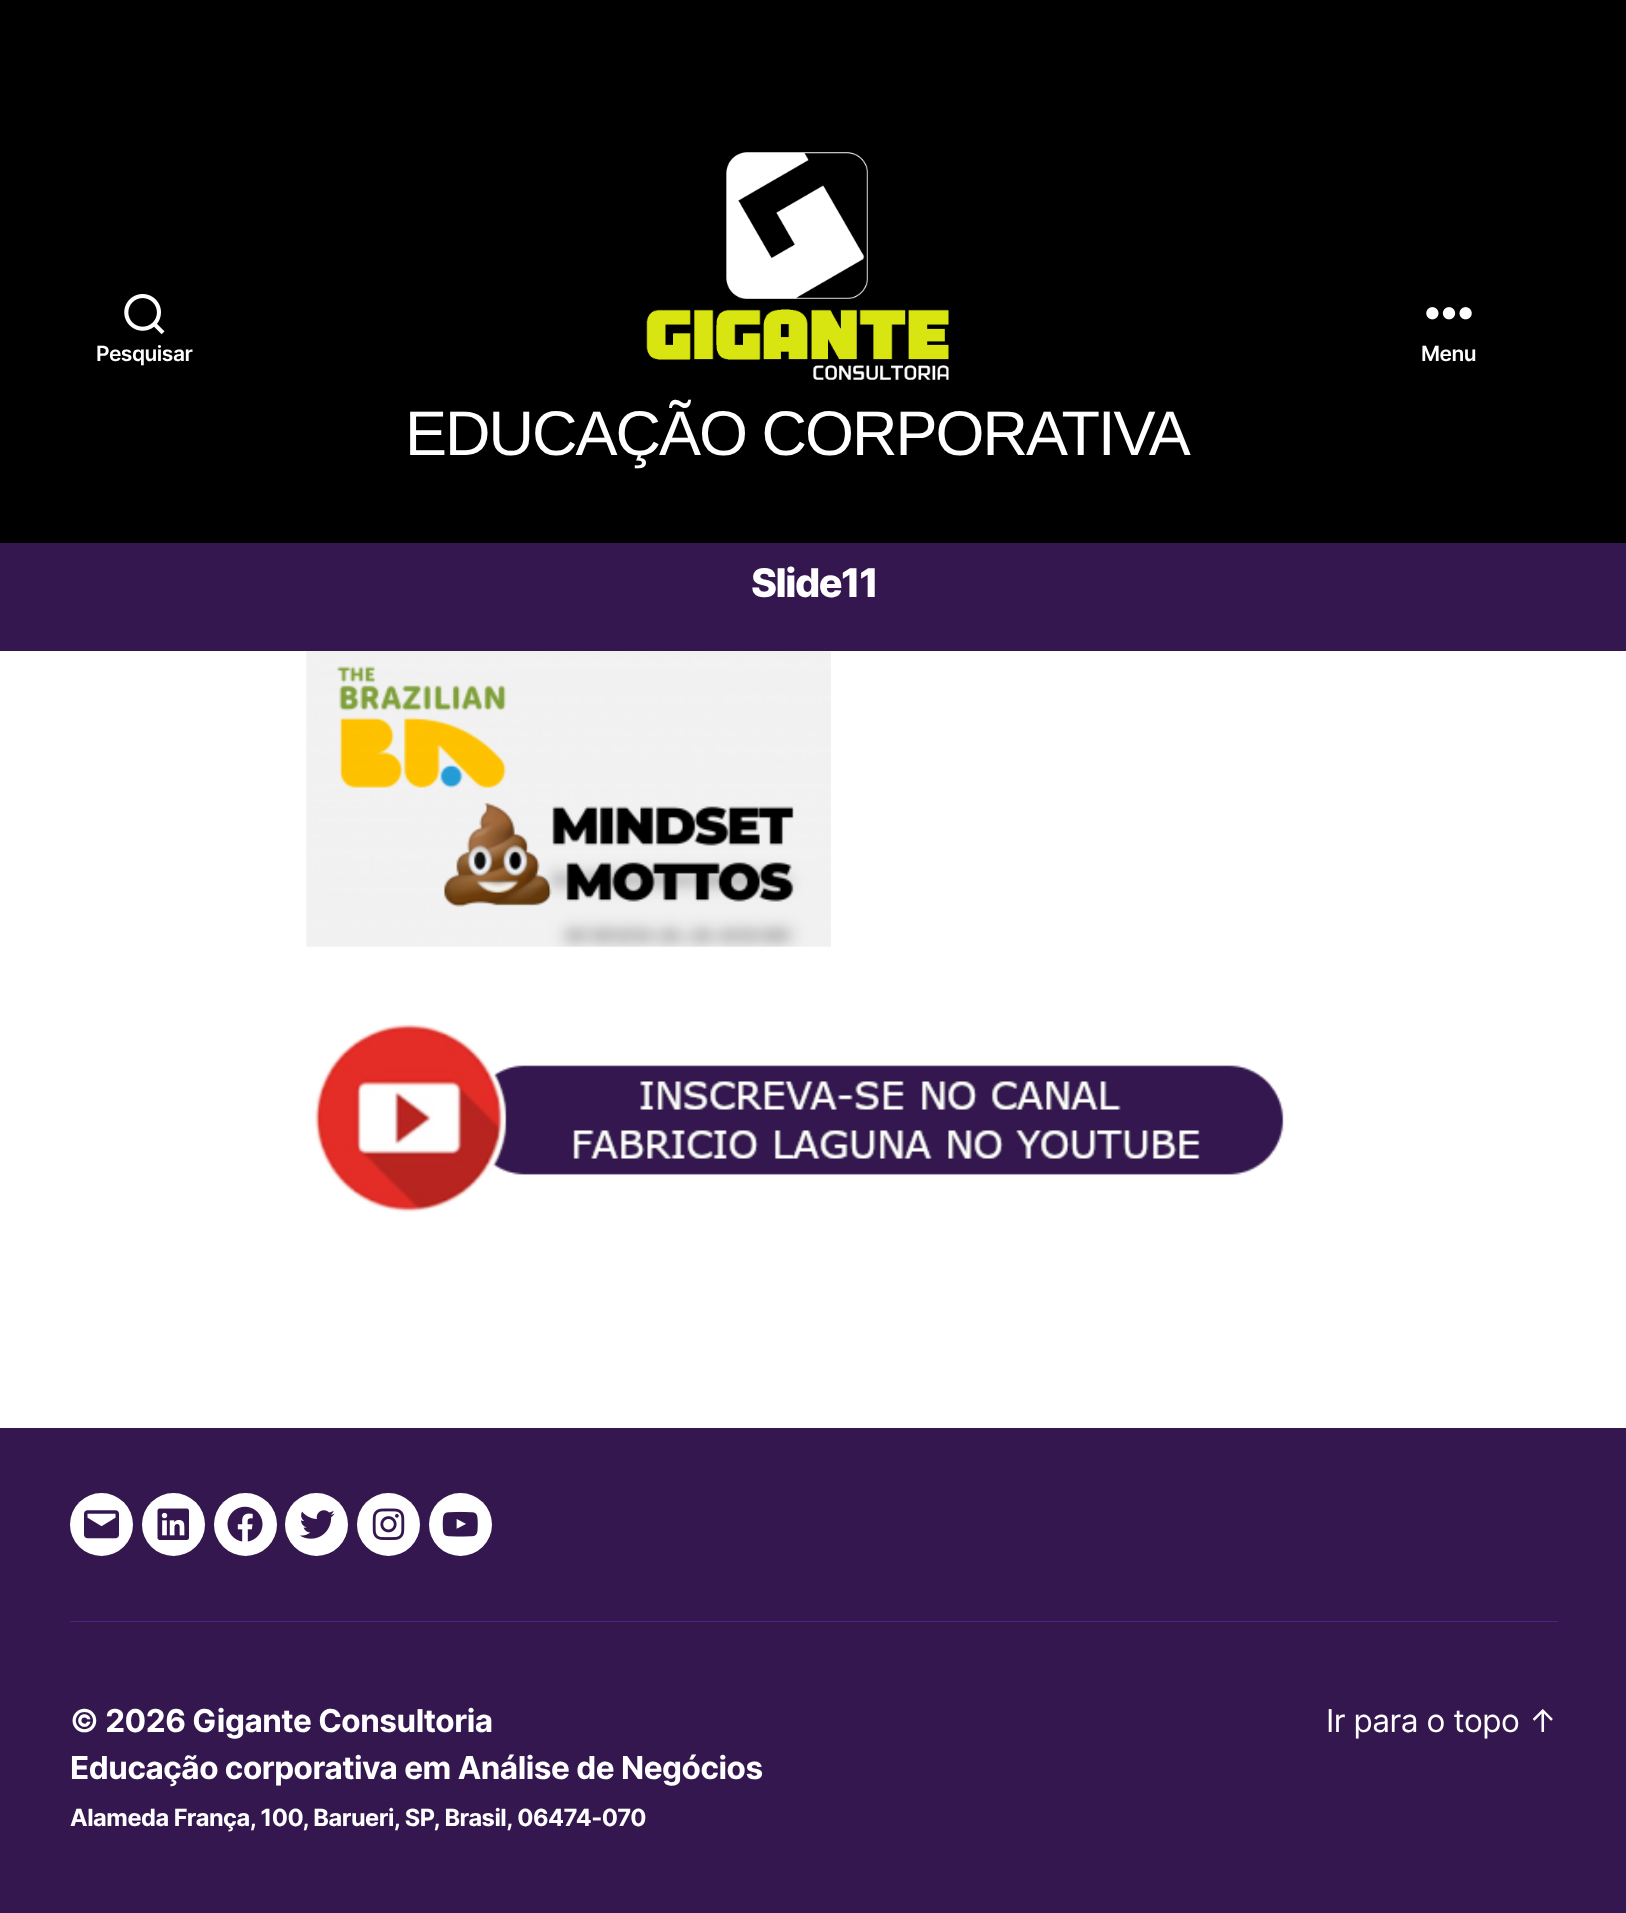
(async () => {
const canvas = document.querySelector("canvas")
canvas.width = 1626
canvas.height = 1913
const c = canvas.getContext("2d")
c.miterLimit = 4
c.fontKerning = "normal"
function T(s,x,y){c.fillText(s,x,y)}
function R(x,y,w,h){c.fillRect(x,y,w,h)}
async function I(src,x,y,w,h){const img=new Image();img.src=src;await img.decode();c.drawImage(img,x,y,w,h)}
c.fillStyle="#fff"
R(0,0,1626,1913)
c.fillStyle="#000"
R(0,0,1626,543)
await I("1.png",124,294,41,41)
c.letterSpacing="-0.47px"
c.font="600 21px Inter"
c.fillStyle="#fff"
T("Pesquisar",96,361)
await I("2.png",1426,307,46,13)
T("Menu",1421,361)
await I("3.png",646,152,303,228)
c.letterSpacing="-2px"
c.font="63px Liberation Sans"
T("EDUCAÇÃO CORPORATIVA",405,455)
c.fillStyle="#34174f"
R(0,543,1626,108)
c.letterSpacing="-1.5px"
c.font="800 39.5px Inter"
c.fillStyle="#fff"
T("Slide11",751,597)
await I("4.png",306,651,525,296)
await I("5.png",314,1023,970,190)
c.fillStyle="#34174f"
R(0,1428,1626,485)
c.fillStyle="#532280"
R(70,1621,1488,1)
c.fillStyle="#fff"
c.beginPath()
c.arc(101.5,1524.5,31.5,0,7)
c.fill()
await I("6.png",84,1510,35,29)
c.beginPath()
c.arc(173.5,1524.5,31.5,0,7)
c.fill()
await I("7.png",157,1508,32,32)
c.beginPath()
c.arc(245.5,1524.5,31.5,0,7)
c.fill()
await I("8.png",227,1506,36,36)
c.beginPath()
c.arc(316.5,1524.5,31.5,0,7)
c.fill()
await I("9.png",299,1510,36,29)
c.beginPath()
c.arc(388.5,1524.5,31.5,0,7)
c.fill()
await I("10.png",372,1508,33,32)
c.beginPath()
c.arc(460.5,1524.5,31.5,0,7)
c.fill()
await I("11.png",442,1511,36,26)
c.letterSpacing="-0.47px"
c.font="bold 31.5px Inter"
T("© 2026 Gigante Consultoria",70,1732)
T("Educação corporativa em Análise de Negócios",70,1779)
c.font="bold 23.6px Inter"
T("Alameda França, 100, Barueri, SP, Brasil, 06474-070",70,1826)
c.font="31.5px Inter"
T("Ir para o topo ↑",1326,1732)
})()
